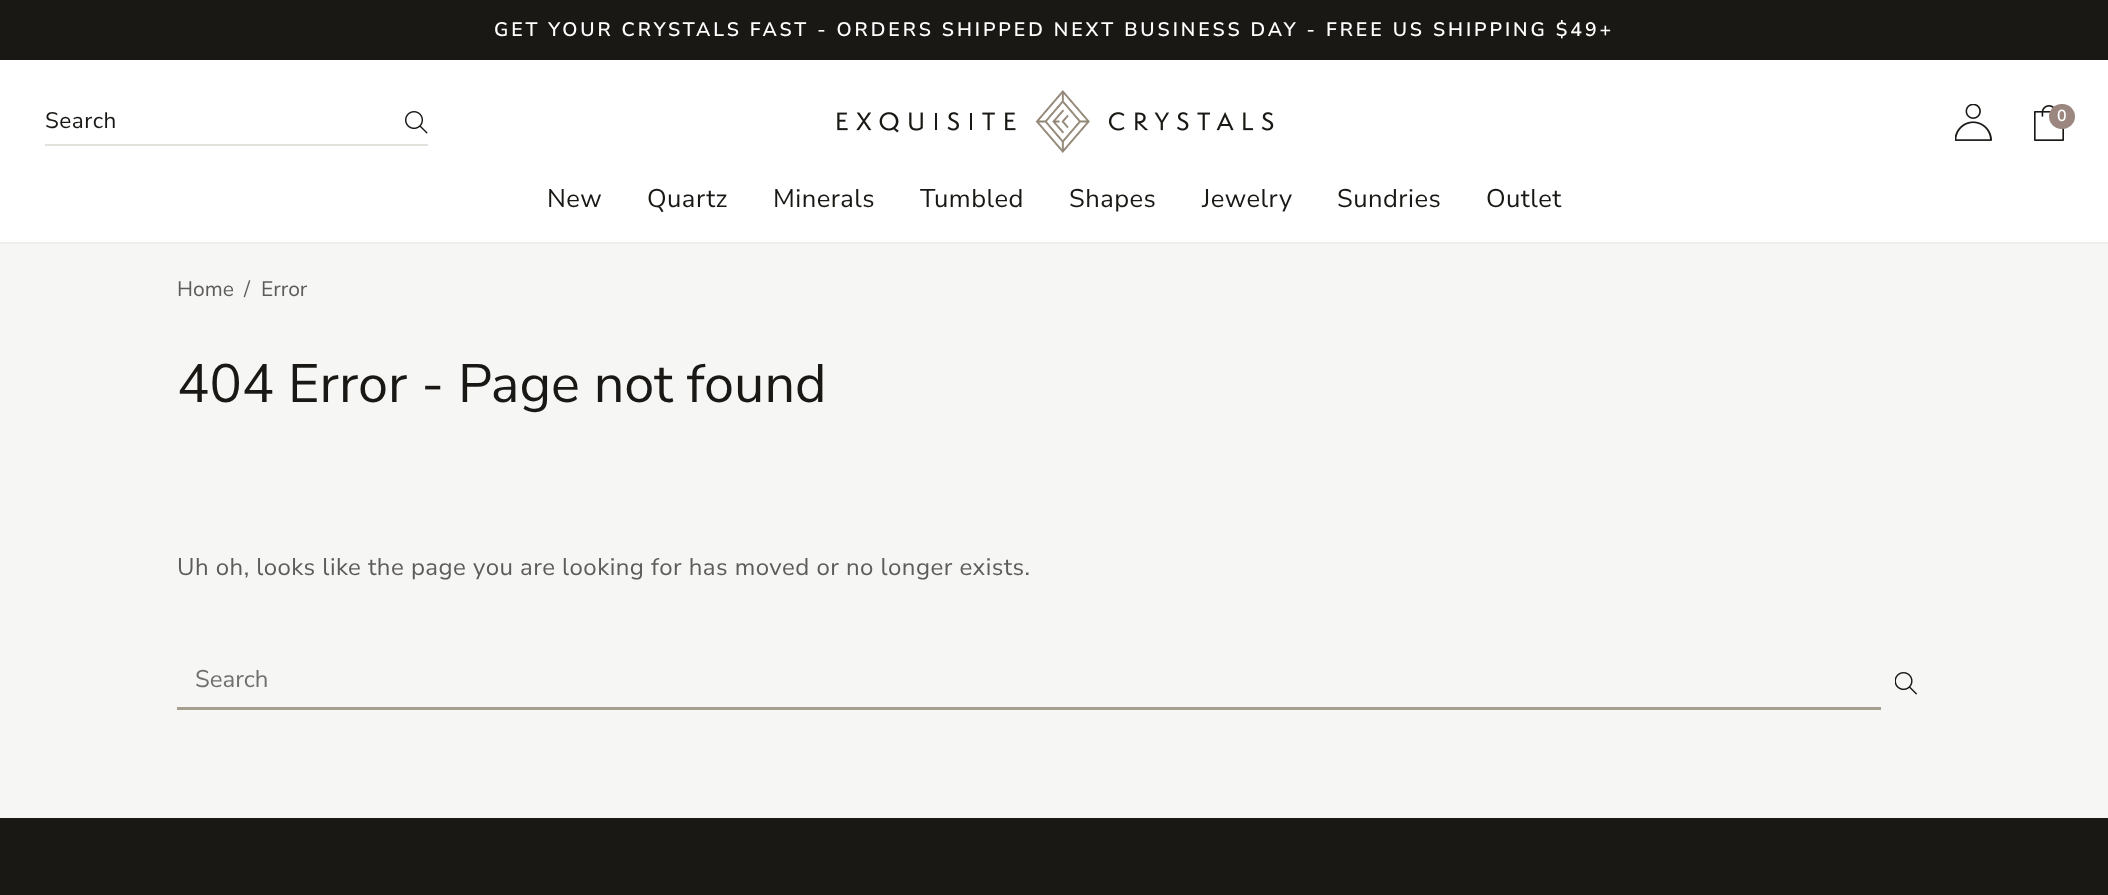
(async () => {
const canvas = document.querySelector("canvas")
canvas.width = 2108
canvas.height = 895
const c = canvas.getContext("2d")
c.miterLimit = 4
c.fontKerning = "normal"
function T(s,x,y){c.fillText(s,x,y)}
function R(x,y,w,h){c.fillRect(x,y,w,h)}
function Q(x,y,w,h,r){c.beginPath();c.roundRect(x,y,w,h,r);c.fill()}
async function I(src,x,y,w,h){const img=new Image();img.src=src;await img.decode();c.drawImage(img,x,y,w,h)}
c.fillStyle="#f6f6f4"
R(0,0,2108,895)
c.fillStyle="#1a1815"
R(0,0,2108,60)
c.letterSpacing="2.92px"
c.font="600 19.5px Nunito Sans"
c.fillStyle="#fff"
T("GET YOUR CRYSTALS FAST - ORDERS SHIPPED NEXT BUSINESS DAY - FREE US SHIPPING $49+",494,36)
c.fillStyle="#eeeeed"
R(0,242,2108,2)
c.fillStyle="#fff"
R(0,60,2108,182)
c.fillStyle="#e3e1dc"
R(45,144,383,2)
c.letterSpacing="0.5px"
c.font="22.5px Nunito Sans"
c.fillStyle="#1a1815"
T("Search",45,128)
await I("1.png",405,111,23,23)
await I("2.png",837,90,437,63)
await I("3.png",1955,104,37,37)
await I("4.png",2034,105,30,36)
c.fillStyle="#9b8780"
Q(2049,104,26,25,12.5)
c.letterSpacing="0px"
c.font="600 16px Nunito Sans"
c.fillStyle="#fff"
T("0",2057,121)
c.letterSpacing="0.5px"
c.font="25.5px Nunito Sans"
c.fillStyle="#1a1815"
T("New",547,207)
T("Quartz",647,207)
T("Minerals",773,207)
T("Tumbled",920,207)
T("Shapes",1069,207)
T("Jewelry",1202,207)
T("Sundries",1337,207)
T("Outlet",1486,207)
c.letterSpacing="0px"
c.font="21px Nunito Sans"
c.fillStyle="#5e5c5b"
T("Home",177,296)
T("/",244,296)
T("Error",261,296)
c.font="54px Nunito Sans"
c.fillStyle="#1a1815"
T("404 Error - Page not found",177,402)
c.letterSpacing="0.48px"
c.font="24px Nunito Sans"
c.fillStyle="#5e5c5b"
T("Uh oh, looks like the page you are looking for has moved or no longer exists.",177,575)
c.fillStyle="#a69e8e"
R(177,707,1704,3)
c.letterSpacing="0px"
c.fillStyle="#707070"
T("Search",195,687)
await I("5.png",1895,672,22,23)
c.fillStyle="#1a1815"
R(0,818,2108,77)
})()
